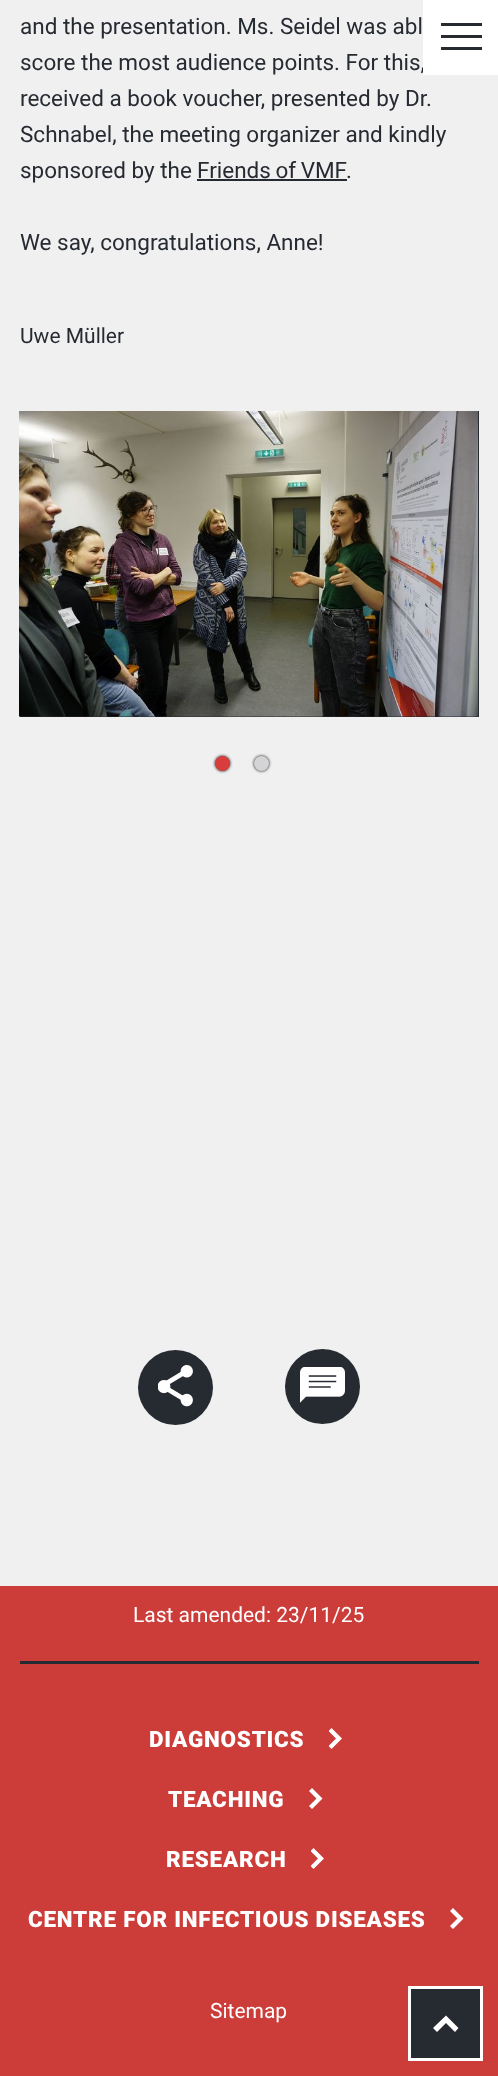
(async () => {
const canvas = document.querySelector("canvas")
canvas.width = 498
canvas.height = 2076
const c = canvas.getContext("2d")
c.miterLimit = 4
c.fontKerning = "normal"
function T(s,x,y){c.fillText(s,x,y)}
function R(x,y,w,h){c.fillRect(x,y,w,h)}
async function I(src,x,y,w,h){const img=new Image();img.src=src;await img.decode();c.drawImage(img,x,y,w,h)}
let path
c.fillStyle="#f0f0f0"
R(0,0,498,2076)
c.font="22.5px Roboto"
c.fillStyle="#262a31"
T("and the presentation. Ms. Seidel was abl",20,34)
T("score the most audience points. For this,",20,70)
T("received a book voucher, presented by Dr.",20,106)
T("Schnabel, the meeting organizer and kindly",20,142)
T("sponsored by the",20,178)
c.wordSpacing="-1px"
T("Friends of VMF",197,178)
R(197,179,150,2)
c.wordSpacing="0px"
T(".",346,178)
T("We say, congratulations, Anne!",20,250)
c.font="21px Roboto"
T("Uwe Müller",20,343)
R(20,411,459,306)
await I("1.png",19,411,459,306)
c.fillStyle="#000"
c.filter="blur(1.5px)"
c.beginPath()
c.roundRect(215,756,15,15,7.5)
c.fill()
c.filter="none"
c.fillStyle="#d83d3b"
c.beginPath()
c.arc(222.5,763.5,7.5,0,7)
c.fill()
c.fillStyle="#000"
c.filter="blur(1.5px)"
c.beginPath()
c.roundRect(254,756,15,15,7.5)
c.fill()
c.filter="none"
c.fillStyle="#d4d4d6"
c.beginPath()
c.arc(261.5,763.5,7.5,0,7)
c.fill()
c.fillStyle="#fff"
R(423,0,75,75)
c.fillStyle="#262a31"
R(441,35,41,3)
R(441,23,41,3)
R(441,47,41,3)
c.fillStyle="#cc3c39"
R(0,1586,498,490)
c.fillStyle="#262a31"
c.beginPath()
c.arc(175.5,1387.5,37.5,0,7)
c.fill()
await I("2.png",158,1365,35,42)
c.beginPath()
c.arc(322.5,1386.5,37.5,0,7)
c.fill()
await I("3.png",300,1367,45,36)
R(20,1661,459,3)
c.fillStyle="#fff"
T("Last amended: 23/11/25",133,1622)
c.save()
c.beginPath()
c.rect(329,1728,13,21)
c.clip()
path = new Path2D("M331.5 1728l-3 3l7.5 7.5l-7.5 7.5l3 3l10.5-10.5z")
c.fill(path,"evenodd")
c.restore()
c.letterSpacing="0.75px"
c.font="900 22.5px Roboto"
T("DIAGNOSTICS",149,1747)
path = new Path2D("M312 1788l-3 3l7.5 7.5l-7.5 7.5l3 3l10.5-10.5z")
c.fill(path,"evenodd")
T("TEACHING",168,1807)
c.save()
c.beginPath()
c.rect(311,1848,13,21)
c.clip()
path = new Path2D("M313.5 1848l-3 3l7.5 7.5l-7.5 7.5l3 3l10.5-10.5z")
c.fill(path,"evenodd")
c.restore()
T("RESEARCH",166,1867)
path = new Path2D("M453 1908l-3 3l7.5 7.5l-7.5 7.5l3 3l10.5-10.5z")
c.fill(path,"evenodd")
T("CENTRE FOR INFECTIOUS DISEASES",28,1927)
c.letterSpacing="0px"
c.font="21px Roboto"
T("Sitemap",210,2018)
c.fillStyle="#262a31"
R(411,1989,69,69)
c.fillStyle="#fff"
path = new Path2D("M433 2028l4 4l9-9l9 9l3.5-4l-12.5-12.5z")
c.fill(path,"evenodd")
c.strokeStyle="#fff"
c.lineWidth=3
c.strokeRect(409.5,1987.5,72,72)
})()
